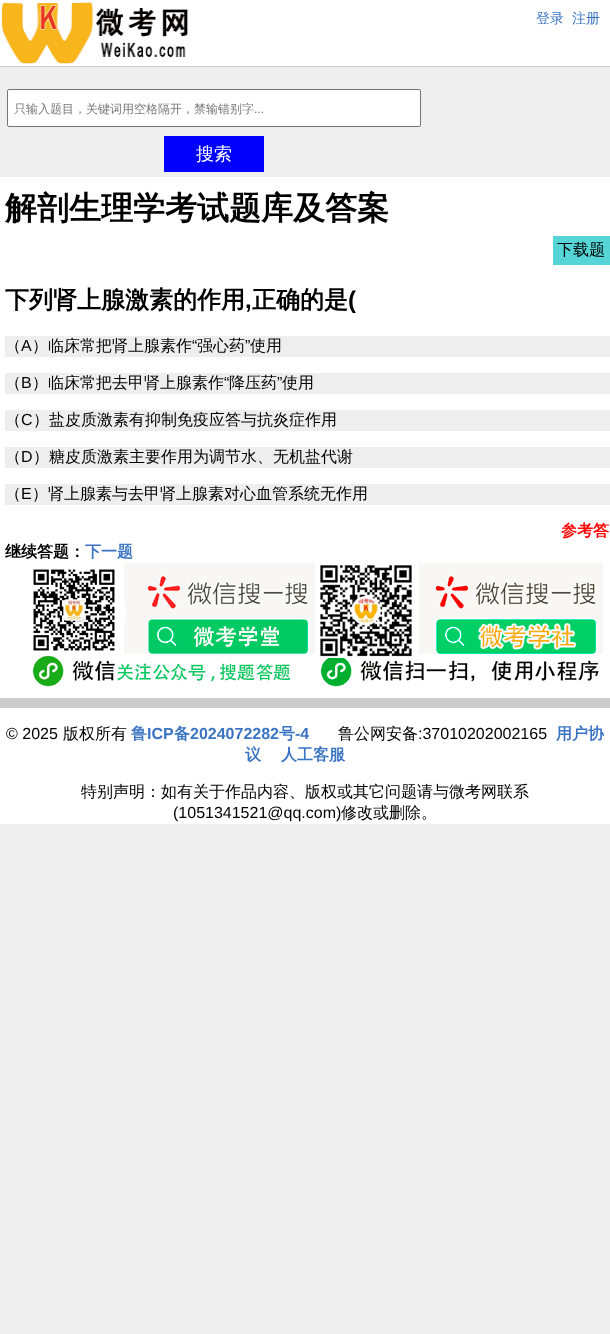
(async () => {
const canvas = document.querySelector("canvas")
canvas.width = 610
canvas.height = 1334
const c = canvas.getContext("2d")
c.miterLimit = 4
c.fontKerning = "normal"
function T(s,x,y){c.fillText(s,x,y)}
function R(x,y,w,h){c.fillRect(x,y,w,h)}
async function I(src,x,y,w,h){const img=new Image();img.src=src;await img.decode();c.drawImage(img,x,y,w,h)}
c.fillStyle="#efefef"
R(0,0,610,1334)
c.fillStyle="#fff"
R(0,0,610,66)
c.fillStyle="#ccc"
R(0,66,610,1)
await I("1.png",1,2,188,62)
c.font="500 14px WenQuanYi Zen Hei"
c.fillStyle="#3b74c3"
T("登录",536,23)
T("注册",572,23)
c.fillStyle="#fff"
c.beginPath()
c.roundRect(7.5,89.5,413,37,1.5)
c.fill()
c.strokeStyle="#767676"
c.stroke()
c.font="500 12px WenQuanYi Zen Hei"
c.fillStyle="#777"
T("只输入题目，关键词用空格隔开，禁输错别字",14,113)
c.font="12px Liberation Sans"
T("...",254,113)
c.fillStyle="#0000fc"
R(164,136,100,36)
c.font="500 18px WenQuanYi Zen Hei"
c.fillStyle="#fff"
T("搜索",196,160)
R(0,177,610,521)
c.font="bold 32px WenQuanYi Zen Hei"
c.fillStyle="#000"
T("解剖生理学考试题库及答案",5,219)
c.fillStyle="#55d5d6"
R(553,236,57,29)
c.font="500 16px WenQuanYi Zen Hei"
c.fillStyle="#000"
T("下载题",557,255)
c.font="bold 24px WenQuanYi Zen Hei"
T("下列肾上腺激素的作用",5,308)
c.font="bold 24px Liberation Sans"
T(",",245,308)
c.font="bold 24px WenQuanYi Zen Hei"
T("正确的是",252,308)
c.font="bold 24px Liberation Sans"
T("(",348,308)
c.fillStyle="#eee"
R(5,336,605,21)
c.font="500 16px WenQuanYi Zen Hei"
c.fillStyle="#000"
T("（",5,351)
c.font="16px Liberation Sans"
T("A",21,351)
c.font="500 16px WenQuanYi Zen Hei"
T("）临床常把肾上腺素作",32,351)
c.font="16px Liberation Sans"
T("“",192,351)
c.font="500 16px WenQuanYi Zen Hei"
T("强心药",197,351)
c.font="16px Liberation Sans"
T("”",245,351)
c.font="500 16px WenQuanYi Zen Hei"
T("使用",250,351)
c.fillStyle="#eee"
R(5,373,605,21)
c.fillStyle="#000"
T("（",5,388)
c.font="16px Liberation Sans"
T("B",21,388)
c.font="500 16px WenQuanYi Zen Hei"
T("）临床常把去甲肾上腺素作",32,388)
c.font="16px Liberation Sans"
T("“",224,388)
c.font="500 16px WenQuanYi Zen Hei"
T("降压药",229,388)
c.font="16px Liberation Sans"
T("”",277,388)
c.font="500 16px WenQuanYi Zen Hei"
T("使用",282,388)
c.fillStyle="#eee"
R(5,410,605,21)
c.fillStyle="#000"
T("（",5,425)
c.font="16px Liberation Sans"
T("C",21,425)
c.font="500 16px WenQuanYi Zen Hei"
T("）盐皮质激素有抑制免疫应答与抗炎症作用",33,425)
c.fillStyle="#eee"
R(5,447,605,21)
c.fillStyle="#000"
T("（",5,462)
c.font="16px Liberation Sans"
T("D",21,462)
c.font="500 16px WenQuanYi Zen Hei"
T("）糖皮质激素主要作用为调节水、无机盐代谢",33,462)
c.fillStyle="#eee"
R(5,484,605,21)
c.fillStyle="#000"
T("（",5,499)
c.font="16px Liberation Sans"
T("E",21,499)
c.font="500 16px WenQuanYi Zen Hei"
T("）肾上腺素与去甲肾上腺素对心血管系统无作用",32,499)
c.font="bold 16px WenQuanYi Zen Hei"
c.fillStyle="#f00"
T("参考答",561,536)
c.fillStyle="#000"
T("继续答题：",5,557)
c.fillStyle="#3b74c3"
T("下一题",85,557)
await I("2.png",32,563,283,124)
await I("3.png",320,563,283,124)
c.fillStyle="#fff"
R(0,708,610,116)
c.fillStyle="#ccc"
R(0,698,610,10)
c.font="16px Liberation Sans"
c.fillStyle="#000"
T("© 2025",6,739)
c.font="500 16px WenQuanYi Zen Hei"
T("版权所有",63,739)
c.font="bold 16px WenQuanYi Zen Hei"
c.fillStyle="#3b74c3"
T("鲁",131,739)
c.font="bold 16px Liberation Sans"
T("ICP",147,739)
c.font="bold 16px WenQuanYi Zen Hei"
T("备",174,739)
c.font="bold 16px Liberation Sans"
T("2024072282",190,739)
c.font="bold 16px WenQuanYi Zen Hei"
T("号",279,739)
c.font="bold 16px Liberation Sans"
T("-4",295,739)
c.font="500 16px WenQuanYi Zen Hei"
c.fillStyle="#000"
T("鲁公网安备",338,739)
c.font="16px Liberation Sans"
T(":37010202002165",418,739)
c.font="bold 16px WenQuanYi Zen Hei"
c.fillStyle="#3b74c3"
T("用户协",556,739)
T("议",245,760)
T("人工客服",281,760)
c.font="500 16px WenQuanYi Zen Hei"
c.fillStyle="#000"
T("特别声明：如有关于作品内容、版权或其它问题请与微考网联系",81,797)
c.font="16px Liberation Sans"
T("(1051341521@qq.com)",173,818)
c.font="500 16px WenQuanYi Zen Hei"
T("修改或删除。",341,818)
})()
